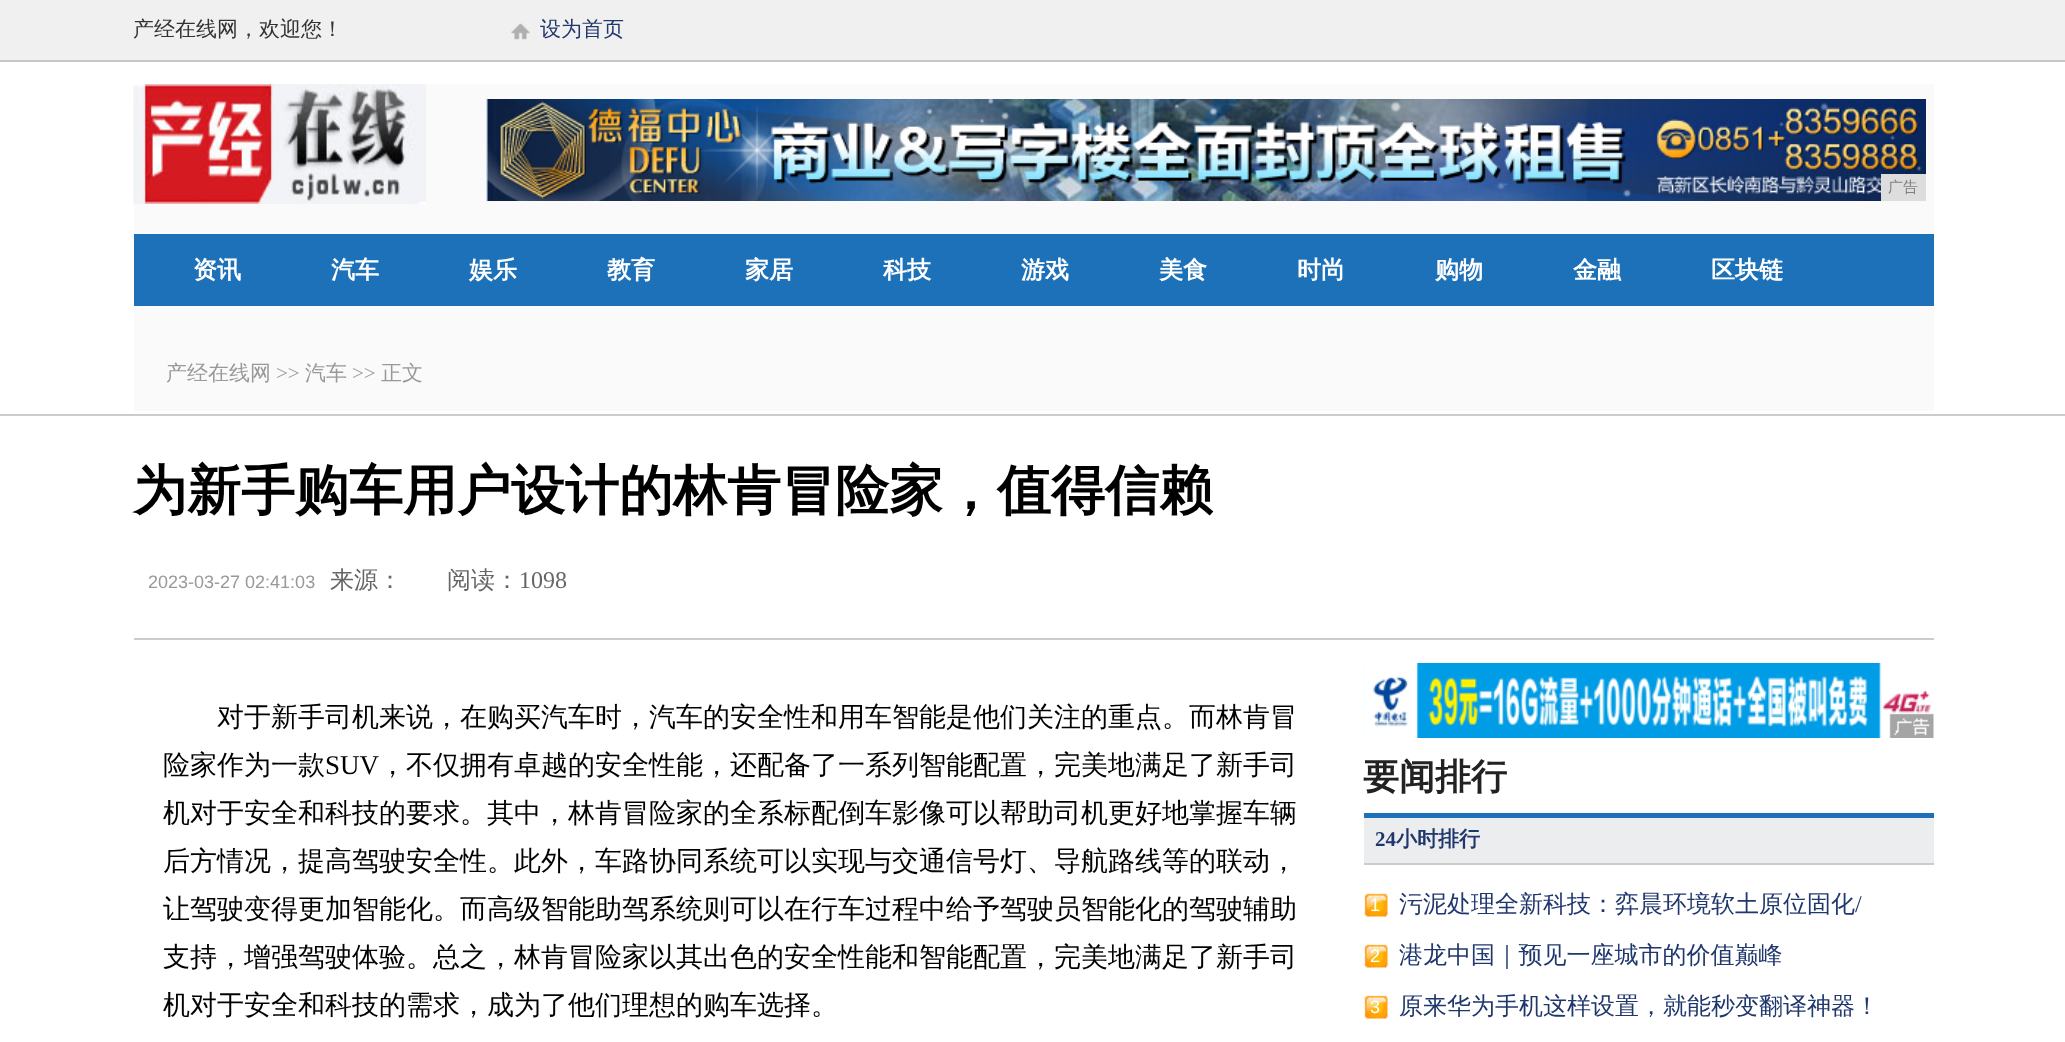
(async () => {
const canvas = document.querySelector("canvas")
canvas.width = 2065
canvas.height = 1042
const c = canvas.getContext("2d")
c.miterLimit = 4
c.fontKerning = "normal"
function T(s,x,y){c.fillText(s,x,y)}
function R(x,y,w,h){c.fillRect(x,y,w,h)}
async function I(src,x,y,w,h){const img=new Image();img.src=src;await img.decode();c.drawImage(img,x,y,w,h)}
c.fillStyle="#fff"
R(0,0,2065,1042)
c.fillStyle="#f0f0f0"
R(0,0,2065,60)
c.fillStyle="#c7c7c7"
R(0,60,2065,2)
c.font="500 21px WenQuanYi Zen Hei"
c.fillStyle="#333"
T("产经在线网，欢迎您！",133,36)
await I("1.png",511,23,19,17)
c.fillStyle="#1f376d"
T("设为首页",540,36)
c.fillStyle="#fafafa"
R(134,84,1800,327)
await I("2.png",133,84,293,120)
await I("3.png",486,99,1440,102)
c.fillStyle="#ddd"
R(1881,174,45,27)
c.font="500 15px WenQuanYi Zen Hei"
c.fillStyle="#808080"
T("广告",1888,192)
c.fillStyle="#1d71b9"
R(134,234,1800,72)
c.font="bold 24px WenQuanYi Zen Hei"
c.fillStyle="#fff"
T("资讯",193,278)
T("汽车",331,278)
T("娱乐",469,278)
T("教育",607,278)
T("家居",745,278)
T("科技",883,278)
T("游戏",1021,278)
T("美食",1159,278)
T("时尚",1297,278)
T("购物",1435,278)
T("金融",1573,278)
T("区块链",1711,278)
c.font="500 21px WenQuanYi Zen Hei"
c.fillStyle="#999"
T("产经在线网",166,380)
c.font="21px Liberation Serif"
T(">>",276,380)
c.font="500 21px WenQuanYi Zen Hei"
T("汽车",305,380)
c.font="21px Liberation Serif"
T(">>",352,380)
c.font="500 21px WenQuanYi Zen Hei"
T("正文",381,380)
c.fillStyle="#ccc"
R(0,414,2065,2)
c.font="bold 54px WenQuanYi Zen Hei"
c.fillStyle="#000"
T("为新手购车用户设计的林肯冒险家，值得信赖",133,509)
c.font="18px Liberation Sans"
c.fillStyle="#999"
T("2023-03-27 02:41:03",148,588)
c.font="500 24px WenQuanYi Zen Hei"
c.fillStyle="#666"
T("来源：",330,588)
T("阅读：",447,588)
c.font="24px Liberation Serif"
T("1098",519,588)
c.fillStyle="#ccc"
R(134,638,1800,2)
c.font="500 27px WenQuanYi Zen Hei"
c.fillStyle="#000"
T("对于新手司机来说，在购买汽车时，汽车的安全性和用车智能是他们关注的重点。而林肯冒",217,726)
T("险家作为一款",163,774)
c.font="27px Liberation Serif"
T("SUV",325,774)
c.font="500 27px WenQuanYi Zen Hei"
T("，不仅拥有卓越的安全性能，还配备了一系列智能配置，完美地满足了新手司",379,774)
T("机对于安全和科技的要求。其中，林肯冒险家的全系标配倒车影像可以帮助司机更好地掌握车辆",163,822)
T("后方情况，提高驾驶安全性。此外，车路协同系统可以实现与交通信号灯、导航路线等的联动，",163,870)
T("让驾驶变得更加智能化。而高级智能助驾系统则可以在行车过程中给予驾驶员智能化的驾驶辅助",163,918)
T("支持，增强驾驶体验。总之，林肯冒险家以其出色的安全性能和智能配置，完美地满足了新手司",163,966)
T("机对于安全和科技的需求，成为了他们理想的购车选择。",163,1014)
await I("4.png",1363,663,571,75)
c.fillStyle="#1d71b9"
R(1364,813,570,5)
c.font="bold 36px WenQuanYi Zen Hei"
c.fillStyle="#222"
T("要闻排行",1363,789)
c.fillStyle="#ecedee"
R(1364,818,570,45)
c.fillStyle="#ccc"
R(1364,863,570,2)
c.font="bold 21px Liberation Serif"
c.fillStyle="#1f376d"
T("24",1375,846)
c.font="bold 21px WenQuanYi Zen Hei"
T("小时排行",1396,846)
await I("5.png",1364,893,24,24)
c.font="18px Liberation Sans"
c.fillStyle="#fff"
T("1",1370,911)
c.font="500 24px WenQuanYi Zen Hei"
c.fillStyle="#1f376d"
T("污泥处理全新科技：弈晨环境软土原位固化",1399,912)
c.font="24px Liberation Serif"
T("/",1855,912)
await I("5.png",1364,944,24,24)
c.font="18px Liberation Sans"
c.fillStyle="#fff"
T("2",1370,962)
c.font="500 24px WenQuanYi Zen Hei"
c.fillStyle="#1f376d"
T("港龙中国｜预见一座城市的价值巅峰",1399,963)
await I("5.png",1364,995,24,24)
c.font="18px Liberation Sans"
c.fillStyle="#fff"
T("3",1370,1013)
c.font="500 24px WenQuanYi Zen Hei"
c.fillStyle="#1f376d"
T("原来华为手机这样设置，就能秒变翻译神器！",1399,1014)
})()
